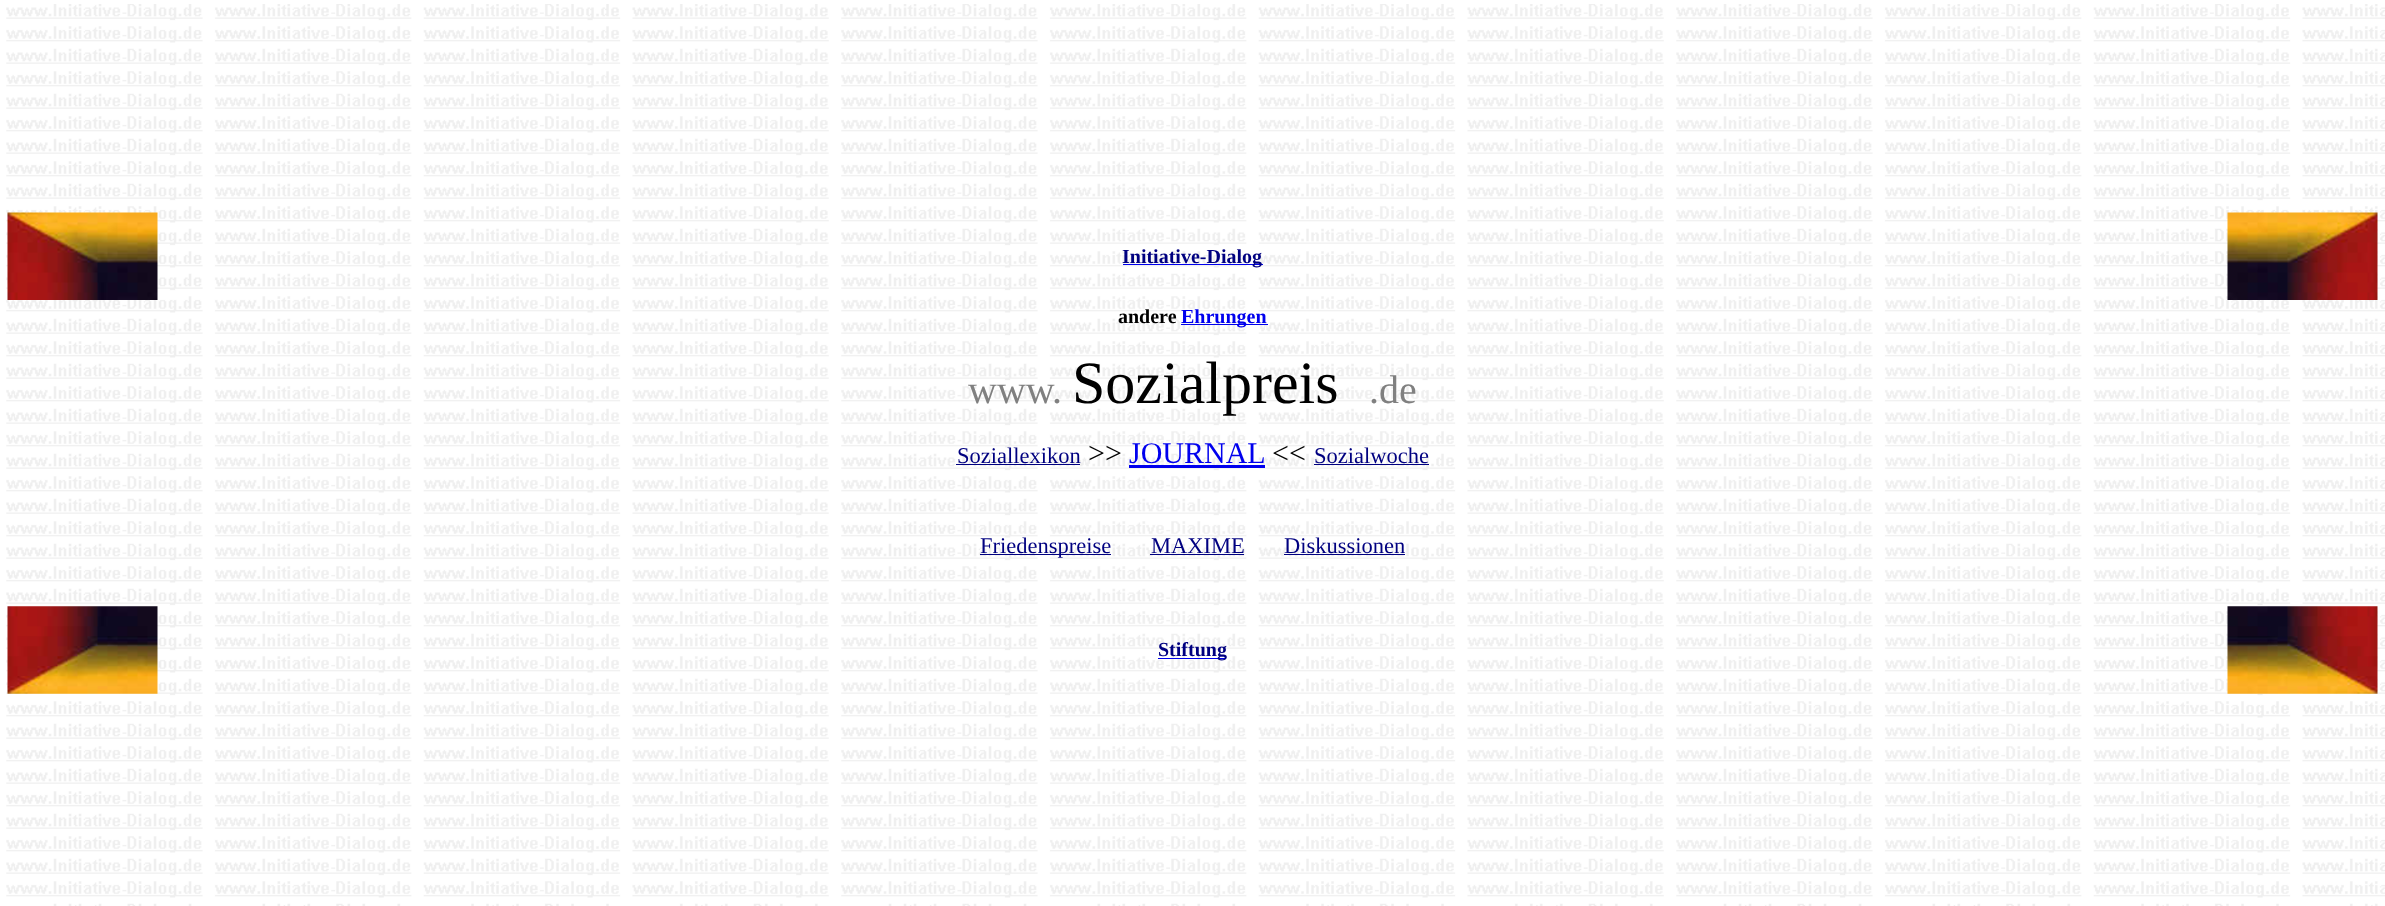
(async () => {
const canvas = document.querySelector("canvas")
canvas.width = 2385
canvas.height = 906
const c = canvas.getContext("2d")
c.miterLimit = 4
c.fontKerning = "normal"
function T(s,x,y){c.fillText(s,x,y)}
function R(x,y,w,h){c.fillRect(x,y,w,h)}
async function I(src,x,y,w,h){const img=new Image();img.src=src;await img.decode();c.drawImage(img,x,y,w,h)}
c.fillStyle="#fff"
R(0,0,2385,906)
await I("1.png",6,4,2379,902)
await I("2.png",7,212,151,88)
c.fillStyle="#00e"
R(1123,264,140,1)
c.font="bold 20px Liberation Serif"
c.fillStyle="#000080"
T("Initiative-Dialog",1122,263)
await I("3.png",2227,212,151,88)
c.fillStyle="#000"
T("andere",1118,323)
c.fillStyle="#00e"
R(1181,324,87,1)
T("Ehrungen",1181,323)
c.font="40px Liberation Serif"
c.fillStyle="#808080"
T("www.",968,403)
c.font="60px Liberation Serif"
c.fillStyle="#000"
T("Sozialpreis",1072,403)
c.font="40px Liberation Serif"
c.fillStyle="#808080"
T(".de",1369,403)
c.font="22.5px Liberation Serif"
c.fillStyle="#000080"
T("Soziallexikon",957,463)
R(956,464,124,1)
c.font="30px Liberation Serif"
c.fillStyle="#000"
T(">>",1088,463)
c.fillStyle="#00e"
T("JOURNAL",1129,463)
R(1129,465,136,3)
c.fillStyle="#000"
T("<<",1272,463)
c.font="22.5px Liberation Serif"
c.fillStyle="#000080"
T("Sozialwoche",1314,463)
R(1314,464,115,1)
R(980,554,131,1)
T("Friedenspreise",980,553)
T("MAXIME",1151,553)
R(1150,554,94,1)
T("Diskussionen",1284,553)
R(1284,554,121,1)
await I("4.png",7,606,151,88)
c.fillStyle="#00e"
R(1158,658,68,1)
c.font="bold 20px Liberation Serif"
c.fillStyle="#000080"
T("Stiftung",1158,656)
await I("5.png",2227,606,151,88)
})()
